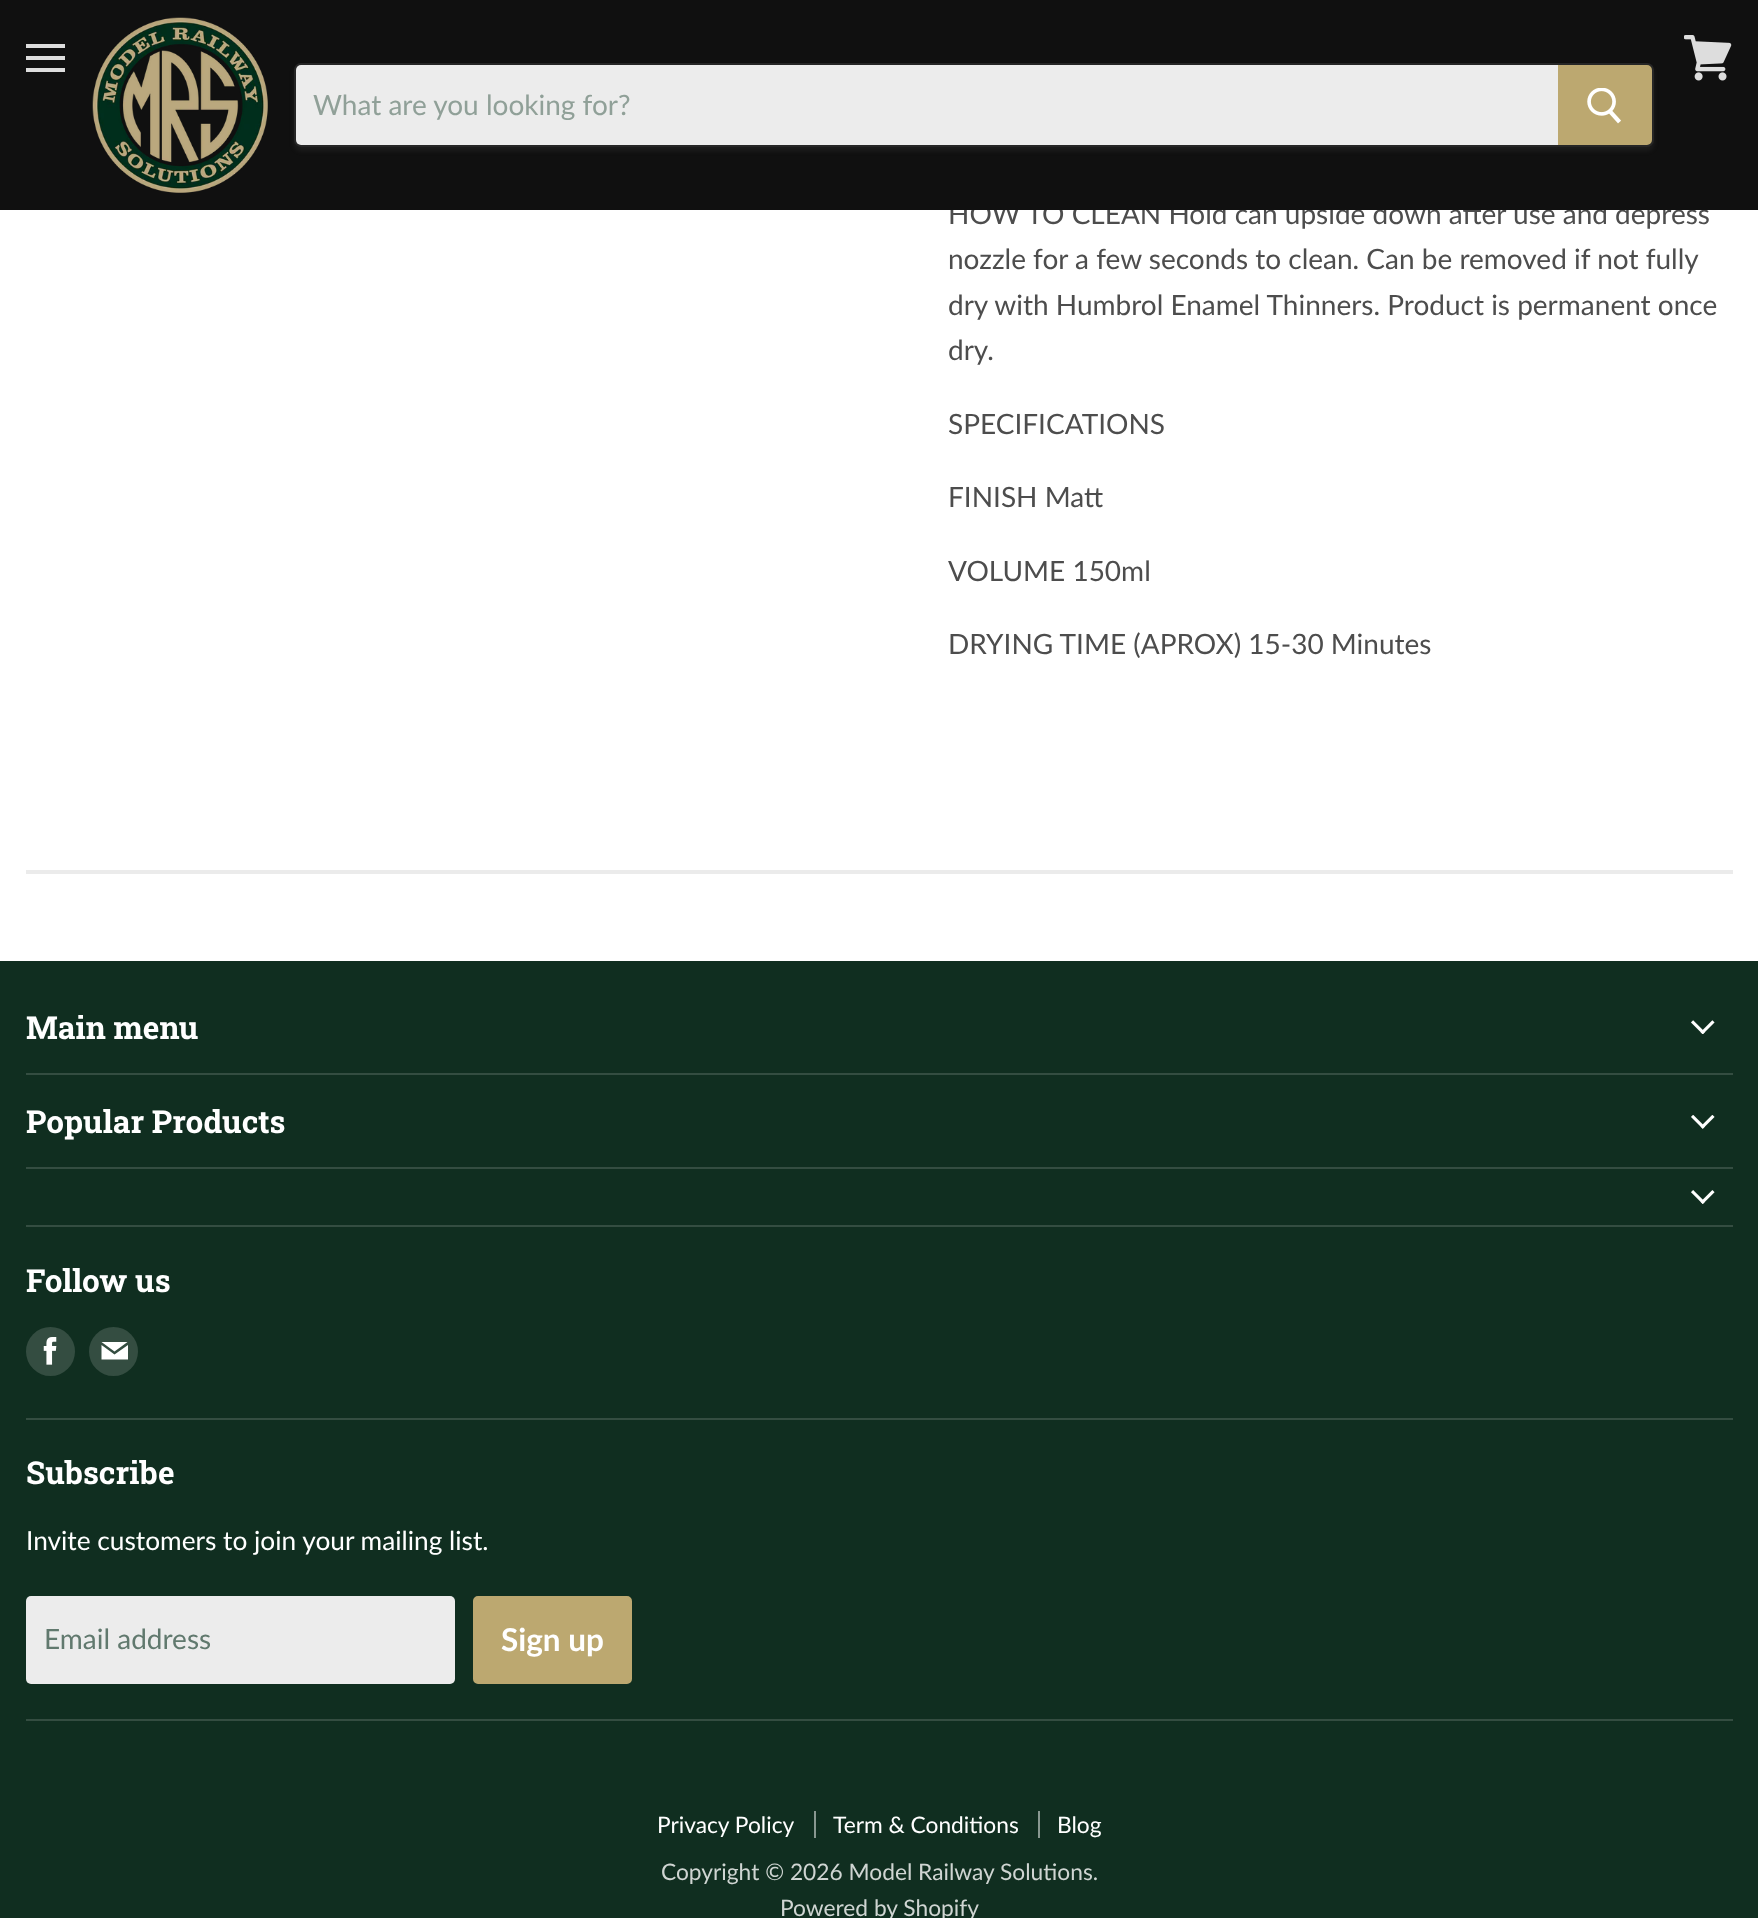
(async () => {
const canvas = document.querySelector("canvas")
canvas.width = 1758
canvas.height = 1918
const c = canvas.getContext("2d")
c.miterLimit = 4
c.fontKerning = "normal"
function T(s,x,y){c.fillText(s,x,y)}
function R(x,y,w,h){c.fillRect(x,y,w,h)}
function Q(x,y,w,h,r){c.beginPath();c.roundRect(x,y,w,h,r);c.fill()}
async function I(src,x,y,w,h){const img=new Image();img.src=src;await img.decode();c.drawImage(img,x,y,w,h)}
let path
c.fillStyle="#fff"
R(0,0,1758,1918)
c.font="28px Lato"
c.fillStyle="#4d4d4d"
T("HOW TO CLEAN Hold can upside down after use and depress",948,224)
c.fillStyle="#101010"
R(0,0,1758,210)
c.fillStyle="#ddd"
R(26,44,39,4)
R(26,56,39,4)
R(26,68,39,4)
await I("1.png",1684,35,48,46)
await I("2.png",92,17,176,176)
c.save()
path = new Path2D("M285 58h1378v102h-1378zm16 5h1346c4 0 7 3 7 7v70c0 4-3 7-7 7h-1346c-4 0-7-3-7-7v-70c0-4 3-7 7-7z")
c.clip(path,"evenodd")
c.fillStyle="#8080801c"
c.filter="blur(2.5px)"
c.beginPath()
c.roundRect(294,67,1360,84,7)
c.fill()
c.filter="none"
c.restore()
c.beginPath()
c.roundRect(295,64,1358,82,6)
c.strokeStyle="#80808033"
c.lineWidth=2
c.stroke()
c.fillStyle="#ececec"
c.beginPath()
c.roundRect(296,65,1262,80,[5,0,0,5])
c.fill()
c.fillStyle="#90a098"
T("What are you looking for?",313,115)
c.fillStyle="#bca870"
c.beginPath()
c.roundRect(1559,66,92,78,[0,4,4,0])
c.fill()
c.strokeStyle="#bca870"
c.stroke()
await I("3.png",1587,88,34,36)
c.fillStyle="#4d4d4d"
T("nozzle for a few seconds to clean. Can be removed if not fully",948,269)
T("dry with Humbrol Enamel Thinners. Product is permanent once",948,315)
T("dry.",948,360)
T("SPECIFICATIONS",948,434)
T("FINISH Matt",948,507)
T("VOLUME 150ml",948,581)
T("DRYING TIME (APROX) 15-30 Minutes",948,654)
c.fillStyle="#80808029"
R(26,870,1707,4)
c.fillStyle="#102e20"
R(0,961,1758,957)
c.fillStyle="#344d41"
R(26,1073,1707,2)
c.font="bold 31.5px Roboto Slab"
c.fillStyle="#fff"
T("Main menu",26,1039)
await I("4.png",1691,1020,24,14)
c.fillStyle="#344d41"
R(26,1167,1707,2)
c.fillStyle="#fff"
T("Popular Products",26,1133)
await I("5.png",1691,1115,24,14)
c.fillStyle="#344d41"
R(26,1225,1707,2)
await I("6.png",1691,1190,24,14)
R(26,1418,1707,2)
c.fillStyle="#fff"
T("Follow us",26,1292)
c.fillStyle="#344d41"
c.beginPath()
c.arc(50.5,1351.5,24.5,0,7)
c.fill()
await I("7.png",43,1337,14,28)
c.beginPath()
c.arc(113.5,1351.5,24.5,0,7)
c.fill()
c.fillStyle="#fff"
path = new Path2D("M127.5 1342h-26l13 9.5zm-13 12.5l-13-9.5v14.5h26.5v-14.5z")
c.fill(path,"evenodd")
c.fillStyle="#344d41"
R(26,1719,1707,2)
c.fillStyle="#fff"
T("Subscribe",26,1484)
c.font="26.25px Lato"
T("Invite customers to join your mailing list.",26,1550)
c.fillStyle="#ececec"
Q(26,1596,429,88,5)
c.font="28px Lato"
c.fillStyle="#61796e"
T("Email address",44,1649)
c.fillStyle="#bca870"
c.beginPath()
c.roundRect(474,1597,157,86,4)
c.fill()
c.stroke()
c.font="bold 31.5px Lato"
c.fillStyle="#fff"
T("Sign up",501,1651)
c.fillStyle="#889790"
R(814,1811,2,27)
c.font="22.75px Lato"
c.fillStyle="#fff"
T("Privacy Policy",657,1833)
c.fillStyle="#889790"
R(1038,1811,2,27)
c.fillStyle="#fff"
T("Term & Conditions",833,1833)
T("Blog",1057,1833)
c.fillStyle="#cfd5d2"
T("Copyright © 2026 Model Railway Solutions.",661,1880)
T("Powered by Shopify",780,1916)
})()
